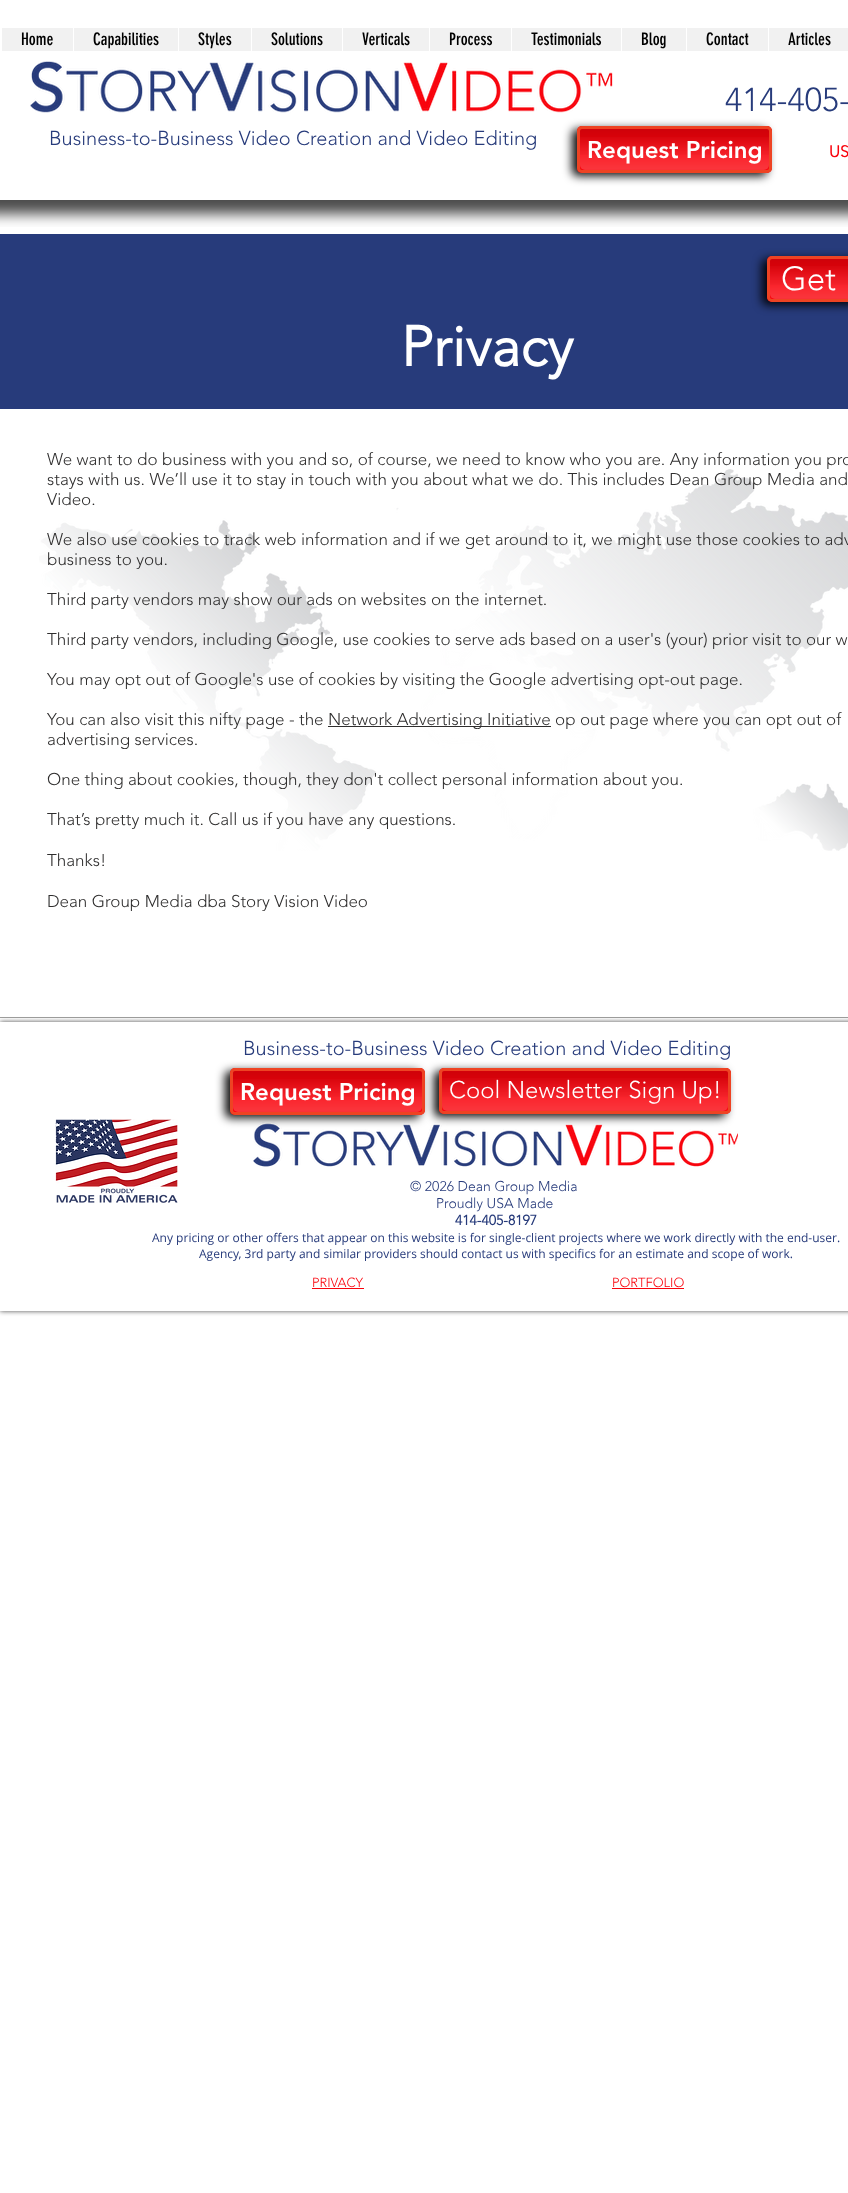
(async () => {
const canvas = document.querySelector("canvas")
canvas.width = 848
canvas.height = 2193
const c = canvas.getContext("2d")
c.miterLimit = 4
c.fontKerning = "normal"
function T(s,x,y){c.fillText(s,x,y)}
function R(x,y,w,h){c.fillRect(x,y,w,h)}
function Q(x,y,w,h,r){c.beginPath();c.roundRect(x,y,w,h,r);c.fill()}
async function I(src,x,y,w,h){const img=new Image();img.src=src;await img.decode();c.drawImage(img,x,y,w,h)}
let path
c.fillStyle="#fff"
R(0,0,848,2193)
c.fillStyle="#273b7b"
R(0,234,848,175)
c.save()
c.beginPath()
c.rect(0,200,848,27)
c.clip()
c.fillStyle="#000000b3"
c.filter="blur(7px)"
c.beginPath()
c.rect(-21,14,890,200)
c.fill()
c.filter="none"
c.restore()
c.fillStyle="#f1f1f1"
R(2,28,846,23)
c.font="17px 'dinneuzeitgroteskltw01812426'"
c.fillStyle="#000"
T("Home",21,45)
c.fillStyle="#fff"
R(73,28,1,23)
c.fillStyle="#000"
T("Capabilities",93,45)
c.fillStyle="#fff"
R(178,28,1,23)
c.fillStyle="#000"
T("Styles",198,45)
c.fillStyle="#fff"
R(251,28,1,23)
c.fillStyle="#000"
T("Solutions",271,45)
c.fillStyle="#fff"
R(342,28,1,23)
c.fillStyle="#000"
T("Verticals",362,45)
c.fillStyle="#fff"
R(429,28,1,23)
c.fillStyle="#000"
T("Process",449,45)
c.fillStyle="#fff"
R(511,28,1,23)
c.fillStyle="#000"
T("Testimonials",531,45)
c.fillStyle="#fff"
R(621,28,1,23)
c.fillStyle="#000"
T("Blog",641,45)
c.fillStyle="#fff"
R(686,28,1,23)
c.fillStyle="#000"
T("Contact",706,45)
c.fillStyle="#fff"
R(768,28,1,23)
c.fillStyle="#000"
T("Articles",788,45)
await I("1.png",30,61,583,52)
c.font="300 33px 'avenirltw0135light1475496'"
c.fillStyle="#273b7b"
T("414-405-",725,111)
c.font="300 20px 'avenirltw0135light1475496'"
T("Business-to-Business Video Creation and Video Editing",49,145)
c.fillStyle="#000000f2"
c.filter="blur(5px)"
c.beginPath()
c.roundRect(572,129,195,47,5)
c.fill()
c.filter="none"
c.fillStyle="#f9030c"
Q(577,126,195,47,5)
await I("2.png",577,129,195,26)
c.beginPath()
c.roundRect(578.5,127.5,192,44,3.5)
c.strokeStyle="#ee4323"
c.lineWidth=3
c.stroke()
await I("3.png",580,137,189,33)
c.font="900 24px 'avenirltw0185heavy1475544'"
c.fillStyle="#fff"
T("Request Pricing",587,158)
c.font="bold 16px 'avenirltw0135light1475496'"
c.fillStyle="#f9030c"
T("US",829,157)
c.fillStyle="#000000f2"
c.filter="blur(5px)"
c.beginPath()
c.roundRect(762,259,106,46,5)
c.fill()
c.filter="none"
c.fillStyle="#f9030c"
Q(767,256,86,46,5)
await I("4.png",767,259,81,26)
c.beginPath()
c.roundRect(768.5,257.5,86,43,3.5)
c.stroke()
await I("5.png",770,266,78,33)
c.font="300 33px 'avenirltw0135light1475496'"
c.fillStyle="#fff"
T("Get",781,290)
c.font="bold 56px 'avenirltw0135light1475496'"
T("Privacy",401,366)
await I("6.png",39,469,809,382)
c.font="300 17px 'avenirltw0135light1475496'"
c.fillStyle="#2f2e2e"
T("We want to do business with you and so, of course, we need to know who you are. Any information you pro",47,465)
T("stays with us. We’ll use it to stay in touch with you about what we do. This includes Dean Group Media and",47,485)
T("Video.",47,505)
T("We also use cookies to track web information and if we get around to it, we might use those cookies to adv",47,545)
T("business to you.",47,565)
T("Third party vendors may show our ads on websites on the internet.",47,605)
T("Third party vendors, including Google, use cookies to serve ads based on a user's (your) prior visit to our w",47,645)
T("You may opt out of Google's use of cookies by visiting the Google advertising opt-out page.",47,685)
T("You can also visit this nifty page - the",47,725)
R(328,726,223,1)
T("Network Advertising Initiative op out page where you can opt out of",328,725)
T("advertising services.",47,745)
T("One thing about cookies, though, they don't collect personal information about you.",47,785)
T("That’s pretty much it. Call us if you have any questions.",47,825)
T("Thanks!",47,866)
T("Dean Group Media dba Story Vision Video",47,907)
c.fillStyle="#a0a09f"
R(0,1017,848,1)
c.save()
path = new Path2D("M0 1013h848v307h-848zm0 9h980v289h-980z")
c.clip(path,"evenodd")
c.fillStyle="#000000b3"
c.filter="blur(2.5px)"
c.beginPath()
c.rect(0,1022,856,289)
c.fill()
c.filter="none"
c.restore()
c.font="300 20px 'avenirltw0135light1475496'"
c.fillStyle="#273b7b"
T("Business-to-Business Video Creation and Video Editing",243,1055)
c.fillStyle="#000000f2"
c.filter="blur(5px)"
c.beginPath()
c.roundRect(225,1071,195,47,5)
c.fill()
c.filter="none"
c.fillStyle="#f9030c"
Q(230,1068,195,47,5)
await I("2.png",230,1071,195,26)
c.beginPath()
c.roundRect(231.5,1069.5,192,44,3.5)
c.stroke()
await I("3.png",233,1079,189,33)
c.font="900 24px 'avenirltw0185heavy1475544'"
c.fillStyle="#fff"
T("Request Pricing",240,1100)
c.fillStyle="#000000f2"
c.filter="blur(5px)"
c.beginPath()
c.roundRect(434,1071,292,46,5)
c.fill()
c.filter="none"
c.fillStyle="#f9030c"
Q(439,1068,292,46,5)
await I("7.png",439,1071,292,26)
c.beginPath()
c.roundRect(440.5,1069.5,289,43,3.5)
c.stroke()
await I("8.png",442,1078,286,33)
c.font="300 24px 'avenirltw0135light1475496'"
c.fillStyle="#fff"
T("Cool Newsletter Sign Up!",449,1098)
await I("9.png",55,1119,123,84)
await I("10.png",253,1122,485,45)
c.font="300 14px 'avenirltw0135light1475496'"
c.fillStyle="#273b7b"
T("© 2026 Dean Group Media",410,1191)
T("Proudly USA Made",436,1208)
c.font="bold 14px 'avenirltw0135light1475496'"
T("414-405-8197",455,1225)
c.font="12px Open Sans"
T("Any pricing or other offers that appear on this website is for single-client projects where we work directly with the end-user.",152,1242)
T("Agency, 3rd party and similar providers should contact us with specifics for an estimate and scope of work.",199,1258)
c.font="300 13px 'avenirltw0135light1475496'"
c.fillStyle="#f9030c"
T("PRIVACY",312,1287)
R(312,1288,52,1)
T("PORTFOLIO",612,1287)
R(612,1288,72,1)
})()
